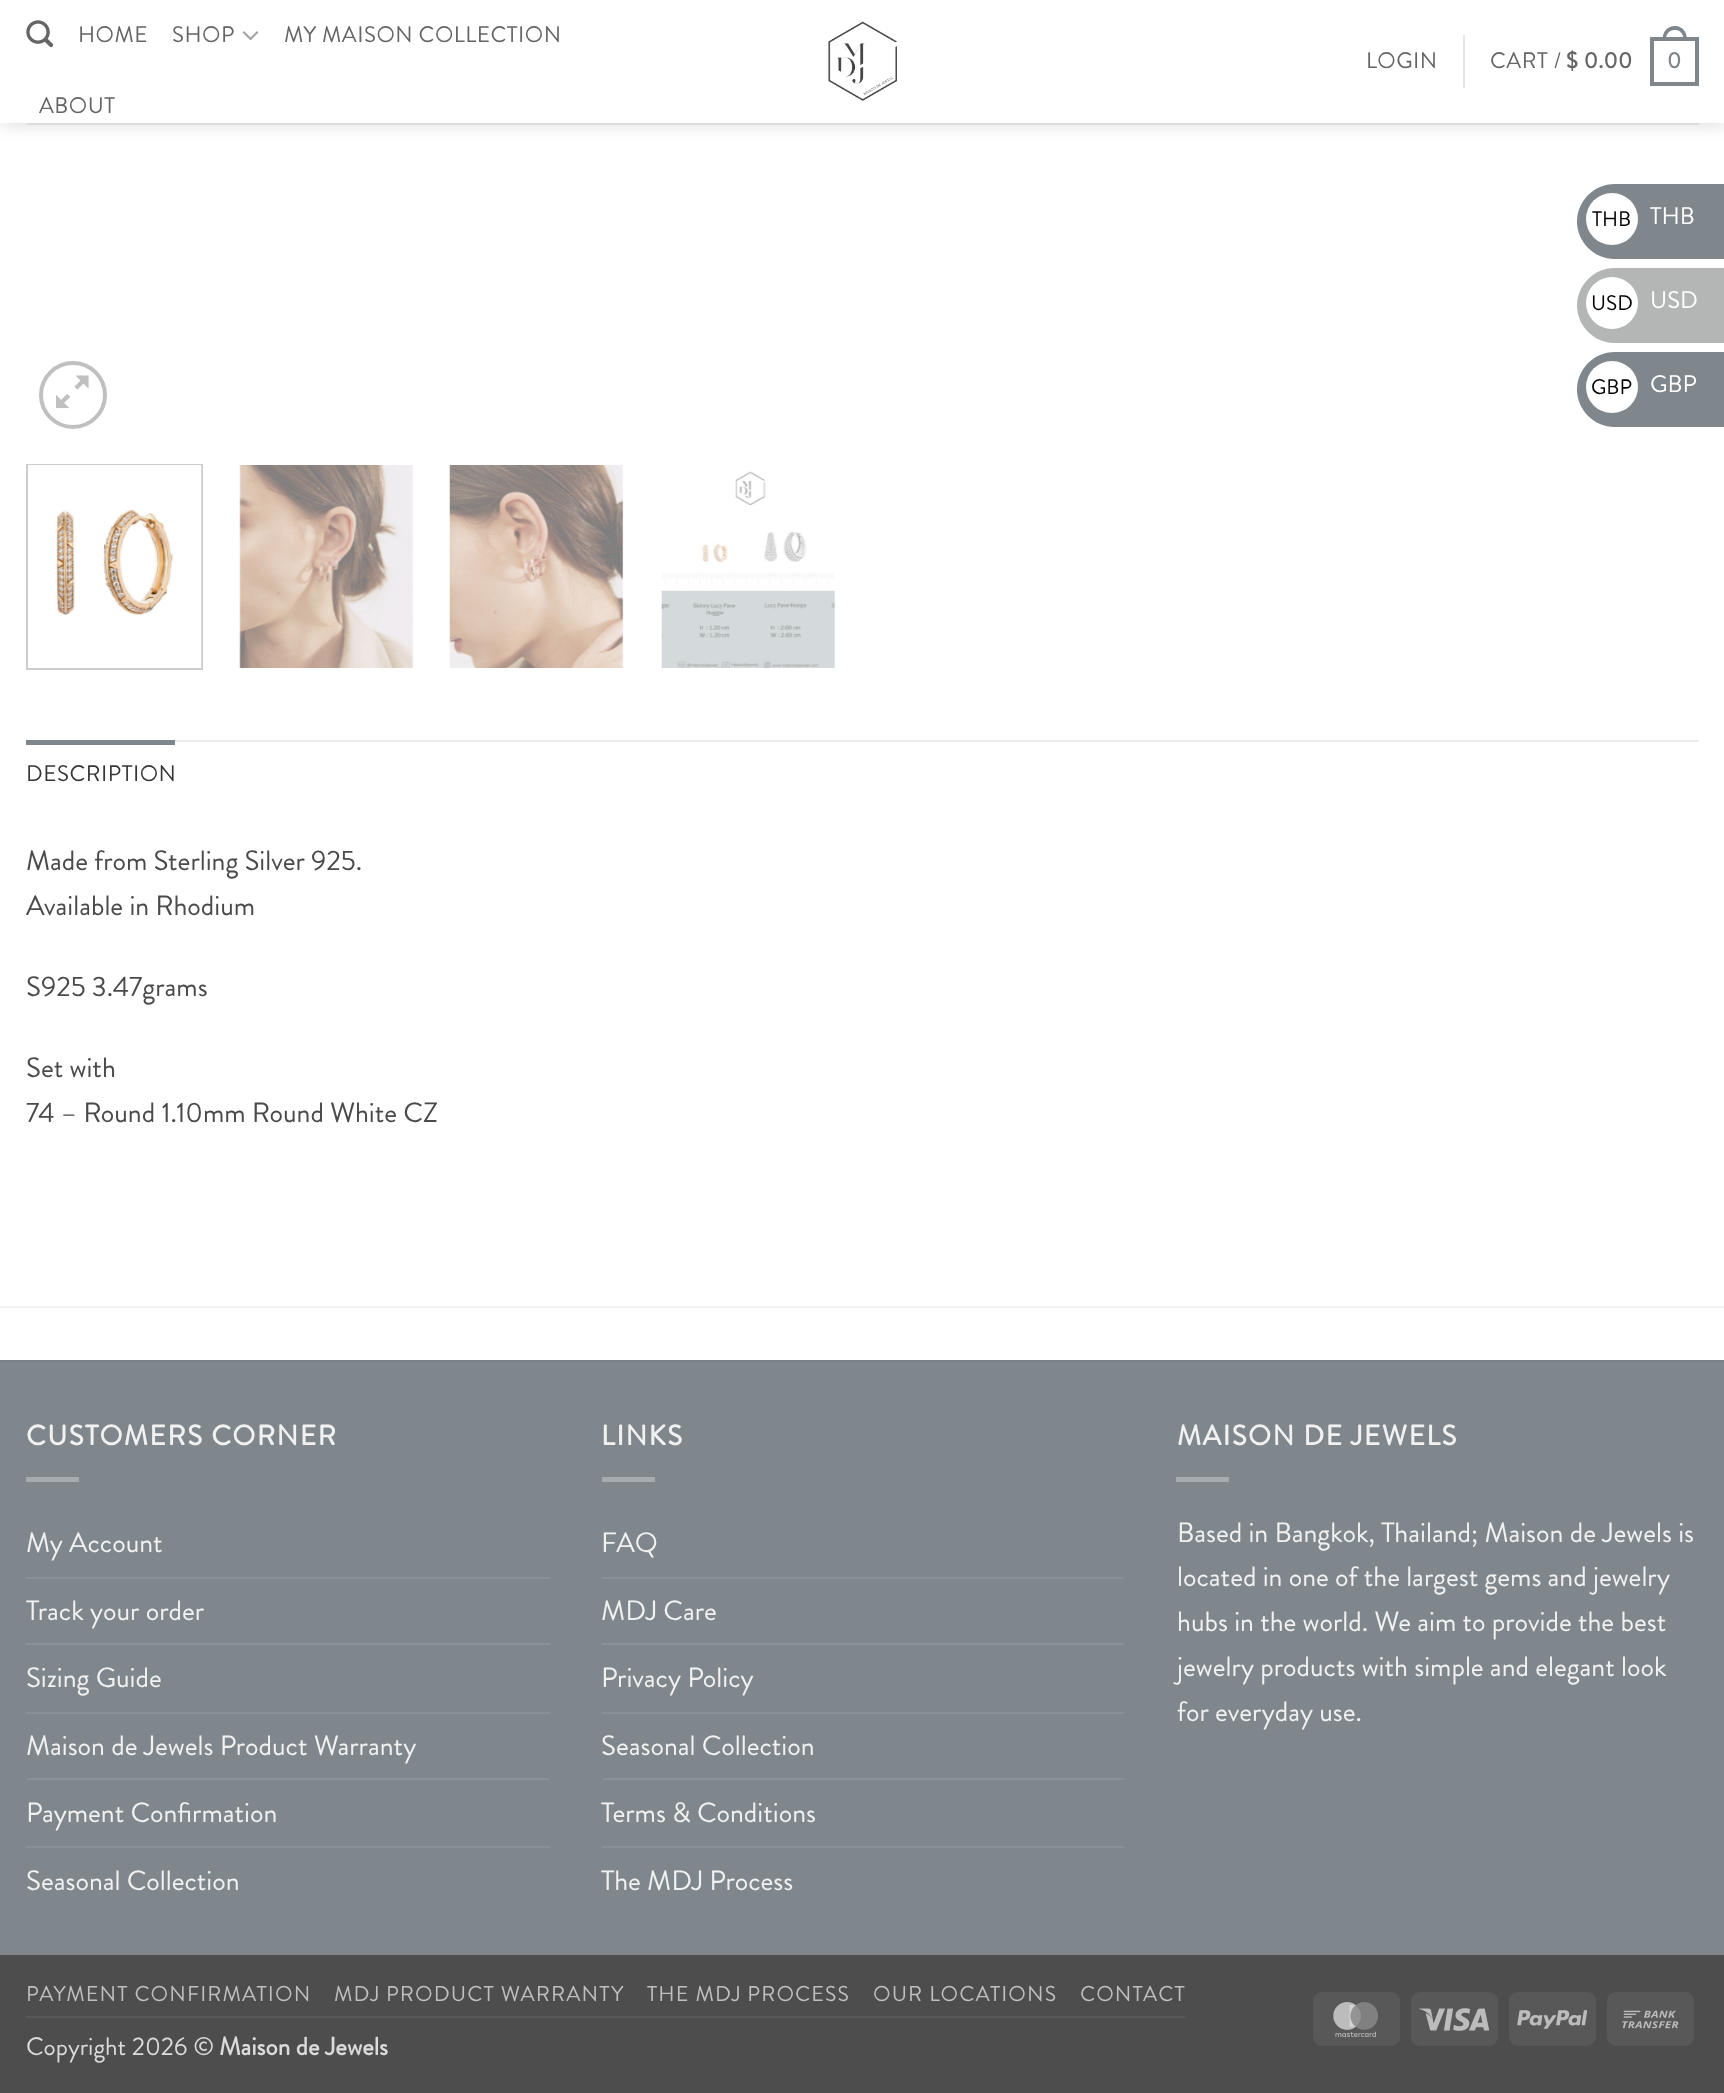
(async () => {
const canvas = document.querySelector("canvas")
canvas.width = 1724
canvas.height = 2093
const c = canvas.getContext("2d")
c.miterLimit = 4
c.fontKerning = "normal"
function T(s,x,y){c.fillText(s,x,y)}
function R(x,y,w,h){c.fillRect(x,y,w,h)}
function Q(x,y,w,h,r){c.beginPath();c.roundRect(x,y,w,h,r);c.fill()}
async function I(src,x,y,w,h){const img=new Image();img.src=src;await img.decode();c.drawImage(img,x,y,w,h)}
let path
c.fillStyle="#fff"
R(0,0,1724,2093)
c.save()
path = new Path2D("M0 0h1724v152h-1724zm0 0h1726v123h-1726z")
c.clip(path,"evenodd")
c.fillStyle="#00000026"
c.filter="blur(9px)"
c.beginPath()
c.rect(2,2,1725,122)
c.fill()
c.filter="none"
c.restore()
await I("1.png",26,20,28,28)
c.letterSpacing="0.5px"
c.font="22.4px Brandon Grotesque"
c.fillStyle="#656565"
T("HOME",78,42)
T("SHOP",172,42)
await I("2.png",242,31,17,10)
T("MY MAISON COLLECTION",284,42)
T("ABOUT",39,113)
await I("3.png",828,21,69,80)
T("LOGIN",1366,68)
c.fillStyle="#e6e6e6"
R(1463,35,2,53)
c.fillStyle="#656565"
T("CART /",1490,68)
c.font="bold 22.4px Brandon Grotesque"
T("$ 0.00",1566,68)
c.strokeStyle="#7f878d"
c.lineWidth=4
c.strokeRect(1652,39,45,45)
c.fillStyle="#7f878d"
path = new Path2D("M1675 26c8 0 12 6.5 12 14h-24.5c0-7.5 4-14 12.5-14zm0 4c6 0 8.5 4.5 8.5 10h-17.5c0-5.5 2.5-10 9-10z")
c.fill(path,"evenodd")
T("0",1667,68)
c.fillStyle="#dcdcdc"
R(26,123,1673,2)
c.fillStyle="#ffffffe6"
R(0,122,1724,1)
c.beginPath()
c.arc(73,395,32,0,7)
c.strokeStyle="#c0c0c0"
c.stroke()
await I("4.png",56,375,33,34)
c.strokeStyle="#ccc"
c.lineWidth=2
c.strokeRect(27,465,175,204)
await I("5.png",28,465,174,203)
await I("6.png",239,465,175,203)
await I("7.png",449,465,175,203)
await I("8.png",661,471,174,197)
c.fillStyle="#ececec"
R(175,740,1524,2)
c.fillStyle="#7f878d"
R(26,740,149,5)
c.font="22.4px Brandon Grotesque"
c.fillStyle="#363636"
T("DESCRIPTION",26,781)
c.letterSpacing="0px"
c.font="28px Brandon Grotesque"
c.fillStyle="#4a4a4a"
T("Made from Sterling Silver 925.",26,870)
T("Available in Rhodium",26,915)
T("S925 3.47grams",26,996)
T("Set with",26,1077)
T("74 – Round 1.10mm Round White CZ",26,1122)
c.fillStyle="#f2f2f2"
R(0,1306,1724,2)
c.fillStyle="#7f878d"
R(0,1362,1724,593)
c.fillStyle="#798086"
R(0,1360,1724,2)
c.letterSpacing="1.4px"
c.font="bold 28px Brandon Grotesque"
c.fillStyle="#f1f1f1"
T("CUSTOMERS CORNER",26,1445)
c.fillStyle="#a5abaf"
R(26,1477,53,5)
c.letterSpacing="0px"
c.font="28px Brandon Grotesque"
c.fillStyle="#f1f1f1"
T("My Account",26,1552)
c.fillStyle="#899196"
R(26,1577,524,2)
c.fillStyle="#f1f1f1"
T("Track your order",26,1620)
c.fillStyle="#899196"
R(26,1643,524,2)
c.fillStyle="#f1f1f1"
T("Sizing Guide",26,1687)
c.fillStyle="#899196"
R(26,1712,524,2)
c.fillStyle="#f1f1f1"
T("Maison de Jewels Product Warranty",26,1755)
c.fillStyle="#899196"
R(26,1778,524,2)
c.fillStyle="#f1f1f1"
T("Payment Confirmation",26,1822)
c.fillStyle="#899196"
R(26,1846,524,2)
c.fillStyle="#f1f1f1"
T("Seasonal Collection",26,1890)
c.letterSpacing="1.4px"
c.font="bold 28px Brandon Grotesque"
T("LINKS",601,1445)
c.fillStyle="#a5abaf"
R(602,1477,53,5)
c.letterSpacing="0px"
c.font="28px Brandon Grotesque"
c.fillStyle="#f1f1f1"
T("FAQ",601,1552)
c.fillStyle="#899196"
R(602,1577,522,2)
c.fillStyle="#f1f1f1"
T("MDJ Care",601,1620)
c.fillStyle="#899196"
R(602,1643,522,2)
c.fillStyle="#f1f1f1"
T("Privacy Policy",601,1687)
c.fillStyle="#899196"
R(602,1712,522,2)
c.fillStyle="#f1f1f1"
T("Seasonal Collection",601,1755)
c.fillStyle="#899196"
R(602,1778,522,2)
c.fillStyle="#f1f1f1"
T("Terms & Conditions",601,1822)
c.fillStyle="#899196"
R(602,1846,522,2)
c.fillStyle="#f1f1f1"
T("The MDJ Process",601,1890)
c.letterSpacing="1.4px"
c.font="bold 28px Brandon Grotesque"
T("MAISON DE JEWELS",1177,1445)
c.fillStyle="#a5abaf"
R(1176,1477,53,5)
c.letterSpacing="0px"
c.font="28px Brandon Grotesque"
c.fillStyle="#f1f1f1"
T("Based in Bangkok, Thailand; Maison de Jewels is",1177,1542)
T("located in one of the largest gems and jewelry",1177,1586)
T("hubs in the world. We aim to provide the best",1177,1631)
T("jewelry products with simple and elegant look",1177,1676)
T("for everyday use.",1177,1721)
c.fillStyle="#4d4d4d"
R(0,1955,1724,138)
c.fillStyle="#585858"
R(26,2016,1159,2)
c.letterSpacing="1.1px"
c.font="21.4px Brandon Grotesque"
c.fillStyle="#bfbfbf"
T("PAYMENT CONFIRMATION",26,2001)
T("MDJ PRODUCT WARRANTY",334,2001)
T("THE MDJ PROCESS",647,2001)
T("OUR LOCATIONS",873,2001)
T("CONTACT",1080,2001)
c.letterSpacing="0px"
c.font="25.25px Brandon Grotesque"
c.fillStyle="#dbdbdb"
T("Copyright 2026 ©",26,2055)
c.font="bold 25.25px Brandon Grotesque"
T("Maison de Jewels",219,2055)
c.fillStyle="#585858"
Q(1313,1992,87,54,9)
await I("9.png",1333,2002,45,35)
Q(1411,1992,87,54,9)
await I("10.png",1419,2008,70,23)
Q(1509,1992,87,54,9)
await I("11.png",1517,2010,70,19)
Q(1607,1992,87,54,9)
await I("12.png",1622,2010,57,19)
c.fillStyle="#7f878d"
path = new Path2D("M1614.5 184h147.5v75h-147.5c-20.5 0-37.5-17-37.5-37.5c0-20.5 17-37.5 37.5-37.5z")
c.fill(path)
c.fillStyle="#fff"
c.beginPath()
c.arc(1612,219,26,0,7)
c.fill()
c.font="21px Brandon Grotesque"
c.fillStyle="#000"
T("THB",1592,226)
c.font="24px Brandon Grotesque"
c.fillStyle="#fff"
T("THB",1650,224)
c.fillStyle="#b4b5b5"
path = new Path2D("M1614.5 268h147.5v75h-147.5c-20.5 0-37.5-17-37.5-37.5c0-20.5 17-37.5 37.5-37.5z")
c.fill(path)
c.fillStyle="#fff"
c.beginPath()
c.arc(1612,303,26,0,7)
c.fill()
c.font="21px Brandon Grotesque"
c.fillStyle="#000"
T("USD",1591,310)
c.font="24px Brandon Grotesque"
c.fillStyle="#fff"
T("USD",1650,308)
c.fillStyle="#7f878d"
path = new Path2D("M1614.5 352h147.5v75h-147.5c-20.5 0-37.5-17-37.5-37.5c0-20.5 17-37.5 37.5-37.5z")
c.fill(path)
c.fillStyle="#fff"
c.beginPath()
c.arc(1612,387,26,0,7)
c.fill()
c.font="21px Brandon Grotesque"
c.fillStyle="#000"
T("GBP",1591,394)
c.font="24px Brandon Grotesque"
c.fillStyle="#fff"
T("GBP",1650,392)
})()
